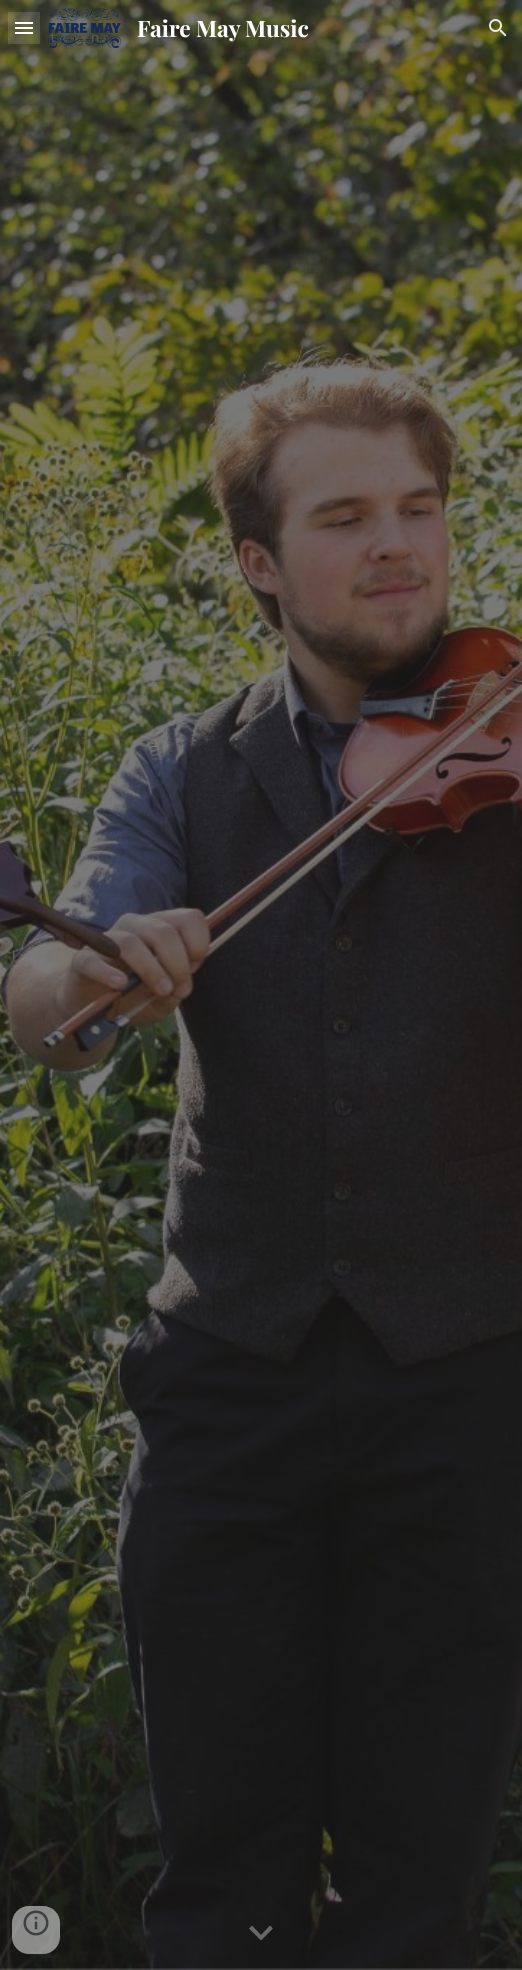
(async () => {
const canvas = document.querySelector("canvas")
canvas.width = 522
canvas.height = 1970
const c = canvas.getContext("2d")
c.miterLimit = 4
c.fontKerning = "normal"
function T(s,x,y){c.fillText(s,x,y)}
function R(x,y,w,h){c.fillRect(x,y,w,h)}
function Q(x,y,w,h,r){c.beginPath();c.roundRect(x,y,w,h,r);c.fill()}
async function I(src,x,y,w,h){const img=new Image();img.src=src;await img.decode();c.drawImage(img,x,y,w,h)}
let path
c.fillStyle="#fff"
R(0,0,522,1970)
await I("1.png",0,0,522,1970)
await I("2.png",48,8,73,40)
c.font="500 14px Google Sans"
c.fillStyle="#56594a"
T("t",50,42)
T("n",91,42)
c.fillStyle="#e1dfdb66"
path = new Path2D("M252 1925.5l9 9.5l9-9.5l3 3l-12 12l-12-12z")
c.fill(path)
c.fillStyle="#fff"
R(15,22,18,2)
R(15,27,18,2)
R(15,32,18,2)
c.fillStyle="#ffffff1f"
R(8,12,32,32)
c.font="bold 22.75px Playfair Display"
c.fillStyle="#fff"
T("Faire May Music",137,37)
await I("3.png",489,19,18,18)
c.fillStyle="#ffffff80"
Q(12,1906,48,48,17)
await I("4.png",23,1910,26,26)
})()
